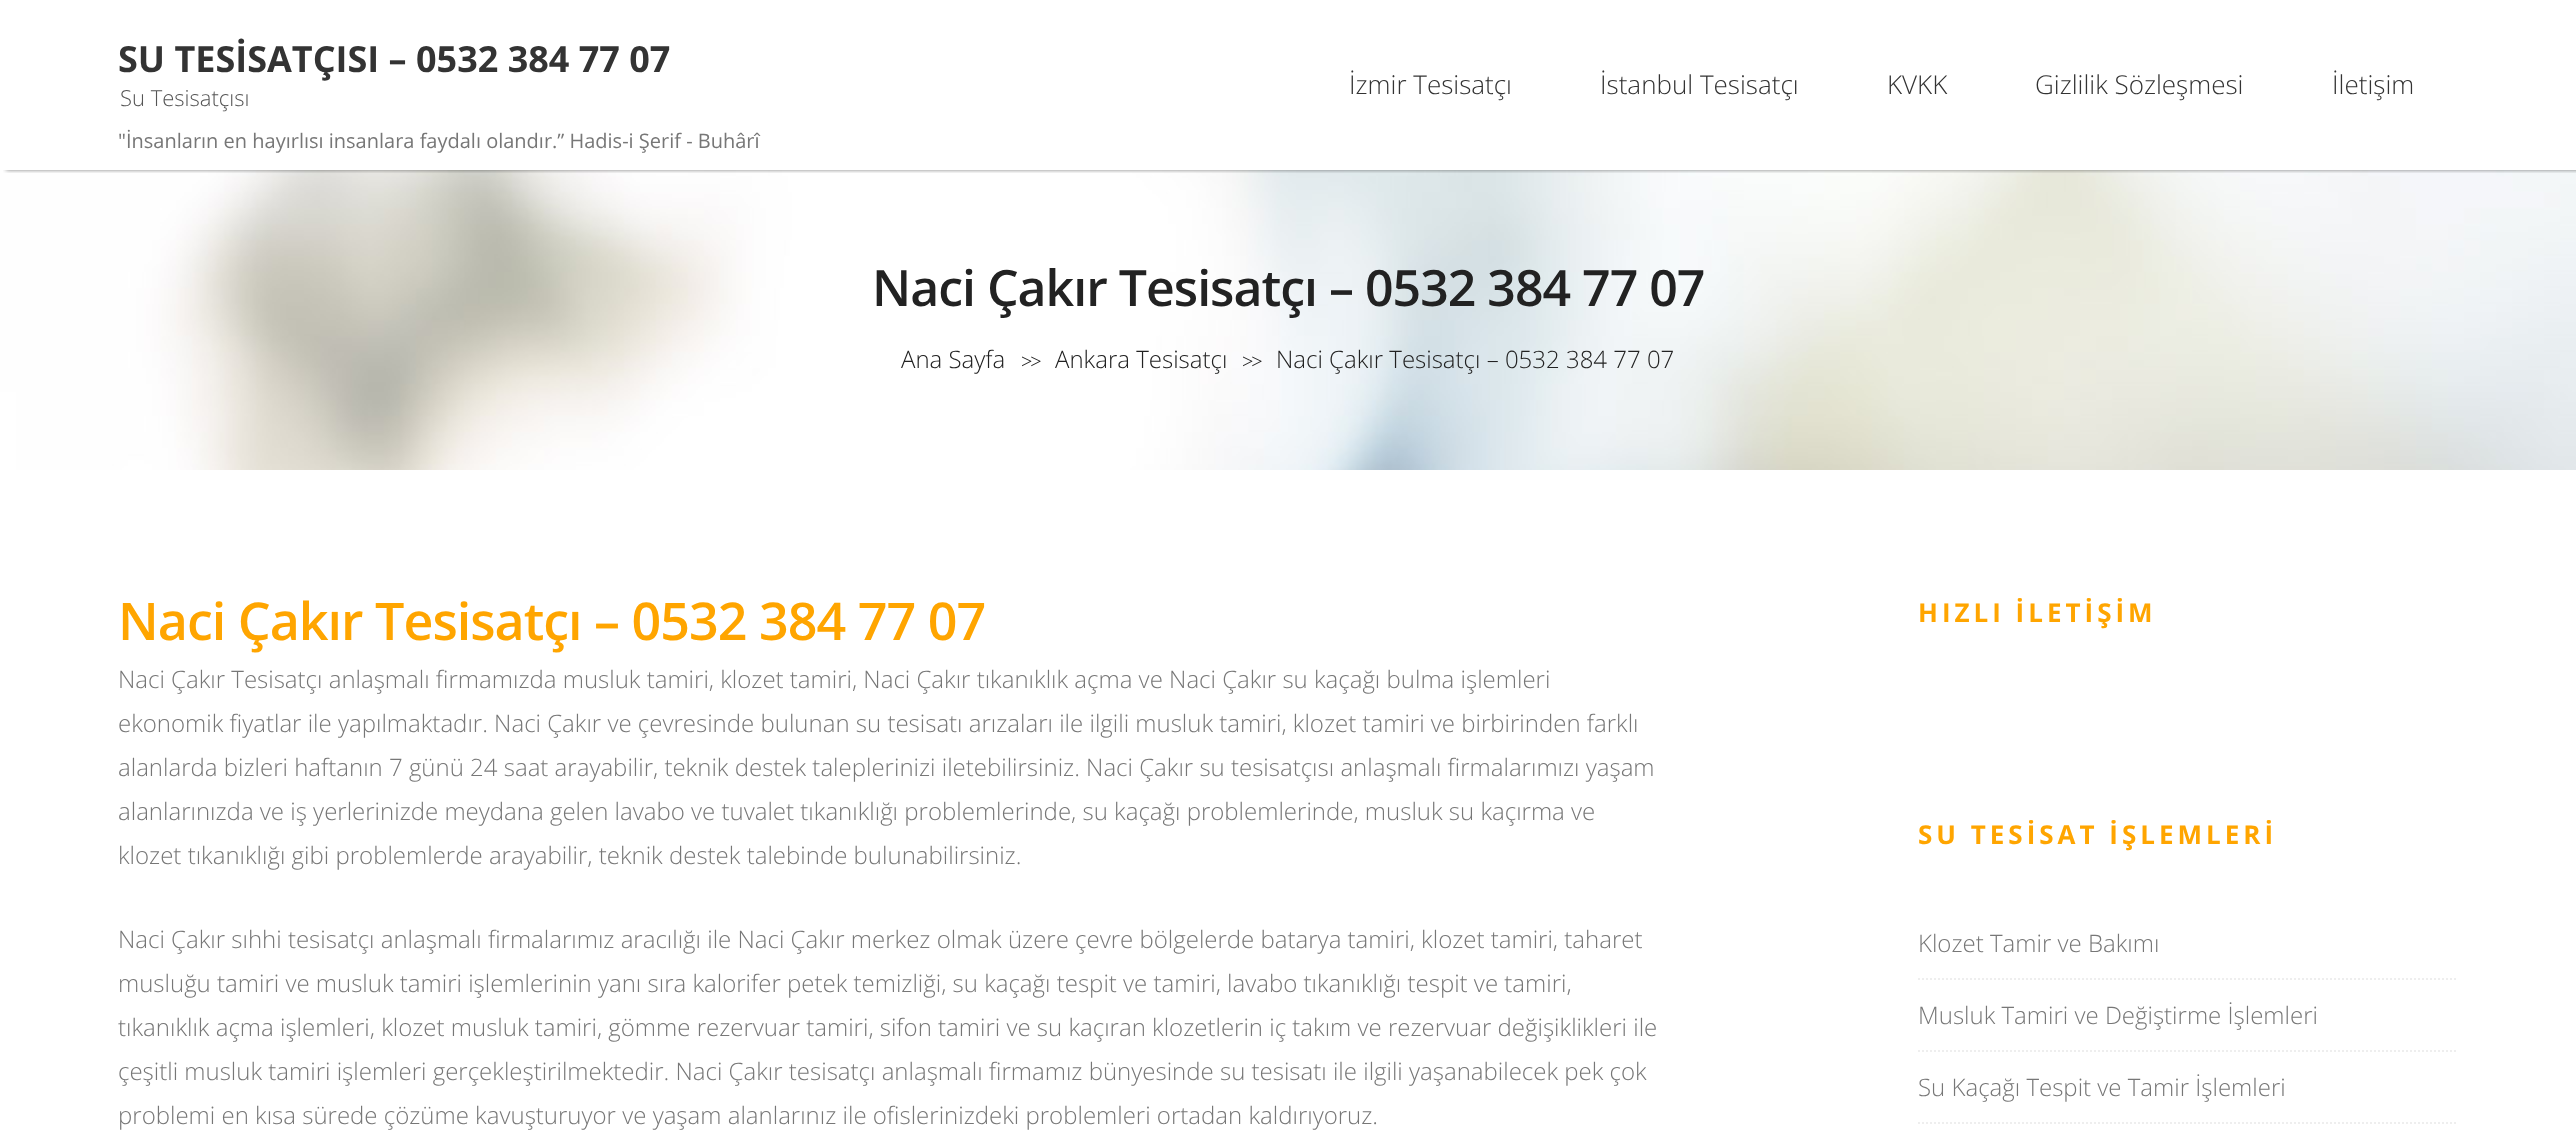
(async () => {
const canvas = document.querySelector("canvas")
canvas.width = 2576
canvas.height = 1130
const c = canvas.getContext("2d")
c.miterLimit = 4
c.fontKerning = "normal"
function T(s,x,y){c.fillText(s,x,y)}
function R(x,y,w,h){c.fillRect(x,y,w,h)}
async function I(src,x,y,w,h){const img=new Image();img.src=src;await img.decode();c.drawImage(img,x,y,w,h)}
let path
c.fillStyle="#fff"
R(0,0,2576,1130)
await I("1.png",0,170,2576,300)
c.save()
c.beginPath()
c.rect(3,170,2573,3)
c.clip()
c.fillStyle="#00000080"
c.filter="blur(2px)"
c.beginPath()
c.rect(6,0,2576,170)
c.fill()
c.filter="none"
c.restore()
c.font="bold 36px Open Sans"
c.fillStyle="#333"
T("SU TESİSATÇISI – 0532 384 77 07",118,72)
c.font="300 22px Open Sans"
c.fillStyle="#555"
T("Su Tesisatçısı",120,106)
c.font="20px Open Sans"
c.fillStyle="#777"
T("\"İnsanların en hayırlısı insanlara faydalı olandır.” Hadis-i Şerif - Buhârî",118,148)
c.font="300 26px Open Sans"
c.fillStyle="#333"
T("İzmir Tesisatçı",1349,94)
T("İstanbul Tesisatçı",1600,94)
T("KVKK",1887,94)
T("Gizlilik Sözleşmesi",2035,94)
T("İletişim",2332,94)
c.letterSpacing="-1px"
c.font="600 50px Open Sans"
c.fillStyle="#222"
T("Naci Çakır Tesisatçı – 0532 384 77 07",872,306)
c.letterSpacing="0px"
c.font="300 24px Open Sans"
T("Ana Sayfa",901,368)
c.letterSpacing="-2px"
c.font="20px Liberation Serif"
T(">>",1021,368)
c.letterSpacing="0px"
c.font="300 24px Open Sans"
T("Ankara Tesisatçı",1055,368)
c.letterSpacing="-2px"
c.font="20px Liberation Serif"
T(">>",1242,368)
c.letterSpacing="0px"
c.font="300 24px Open Sans"
T("Naci Çakır Tesisatçı – 0532 384 77 07",1276,368)
c.letterSpacing="-1px"
c.font="600 52px Open Sans"
c.fillStyle="#ffa500"
T("Naci Çakır Tesisatçı – 0532 384 77 07",118,640)
c.letterSpacing="0px"
c.font="300 24px Open Sans"
c.fillStyle="#777"
T("Naci Çakır Tesisatçı anlaşmalı firmamızda musluk tamiri, klozet tamiri, Naci Çakır tıkanıklık açma ve Naci Çakır su kaçağı bulma işlemleri",118,688)
T("ekonomik fiyatlar ile yapılmaktadır. Naci Çakır ve çevresinde bulunan su tesisatı arızaları ile ilgili musluk tamiri, klozet tamiri ve birbirinden farklı",118,732)
T("alanlarda bizleri haftanın 7 günü 24 saat arayabilir, teknik destek taleplerinizi iletebilirsiniz. Naci Çakır su tesisatçısı anlaşmalı firmalarımızı yaşam",118,776)
T("alanlarınızda ve iş yerlerinizde meydana gelen lavabo ve tuvalet tıkanıklığı problemlerinde, su kaçağı problemlerinde, musluk su kaçırma ve",118,820)
T("klozet tıkanıklığı gibi problemlerde arayabilir, teknik destek talebinde bulunabilirsiniz.",118,864)
T("Naci Çakır sıhhi tesisatçı anlaşmalı firmalarımız aracılığı ile Naci Çakır merkez olmak üzere çevre bölgelerde batarya tamiri, klozet tamiri, taharet",118,948)
T("musluğu tamiri ve musluk tamiri işlemlerinin yanı sıra kalorifer petek temizliği, su kaçağı tespit ve tamiri, lavabo tıkanıklığı tespit ve tamiri,",118,992)
T("tıkanıklık açma işlemleri, klozet musluk tamiri, gömme rezervuar tamiri, sifon tamiri ve su kaçıran klozetlerin iç takım ve rezervuar değişiklikleri ile",118,1036)
T("çeşitli musluk tamiri işlemleri gerçekleştirilmektedir. Naci Çakır tesisatçı anlaşmalı firmamız bünyesinde su tesisatı ile ilgili yaşanabilecek pek çok",118,1080)
T("problemi en kısa sürede çözüme kavuşturuyor ve yaşam alanlarınız ile ofislerinizdeki problemleri ortadan kaldırıyoruz.",118,1124)
c.letterSpacing="4px"
c.font="bold 26px Open Sans"
c.fillStyle="#ffa500"
T("HIZLI İLETİŞİM",1918,622)
T("SU TESİSAT İŞLEMLERİ",1918,844)
path = new Path2D("M1918 979h540")
c.strokeStyle="#eee"
c.lineWidth=2
c.setLineDash([2,2])
c.stroke(path)
c.letterSpacing="0px"
c.font="300 24px Open Sans"
c.fillStyle="#777"
T("Klozet Tamir ve Bakımı",1918,952)
path = new Path2D("M1918 1051h540")
c.stroke(path)
T("Musluk Tamiri ve Değiştirme İşlemleri",1918,1024)
path = new Path2D("M1918 1123h540")
c.stroke(path)
T("Su Kaçağı Tespit ve Tamir İşlemleri",1918,1096)
})()
